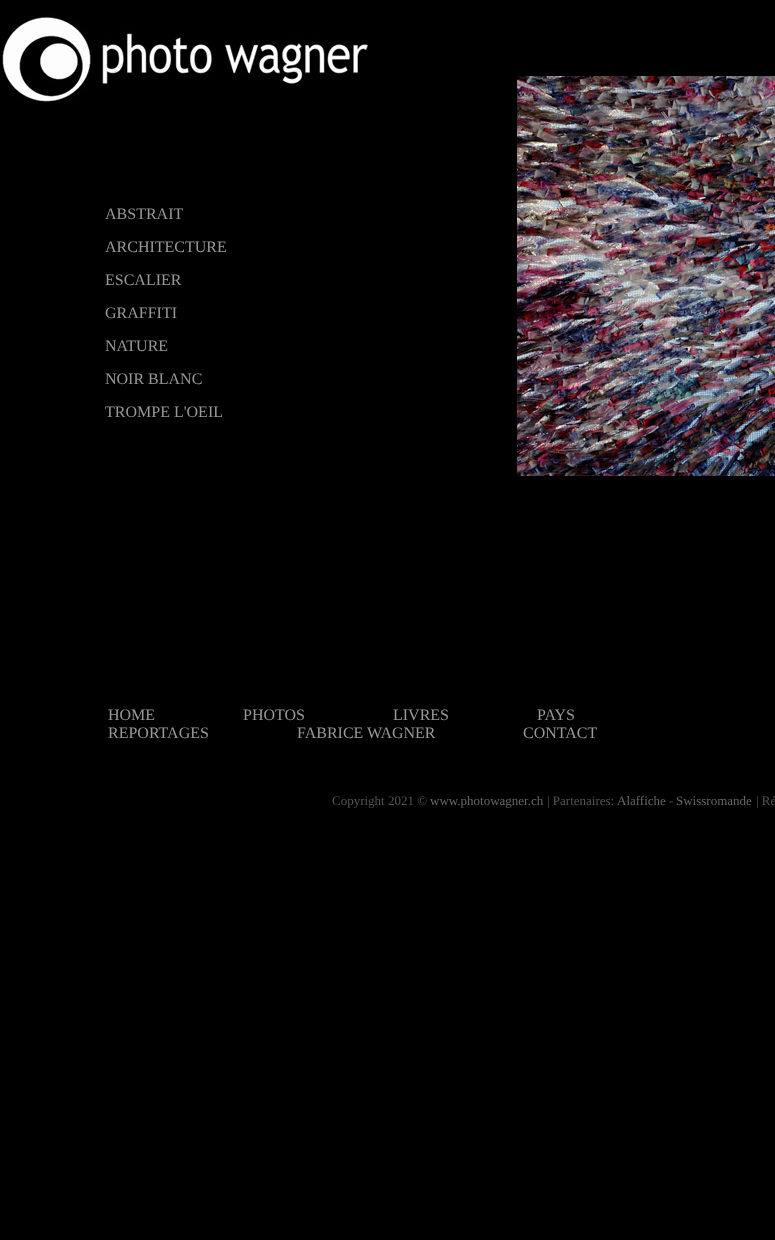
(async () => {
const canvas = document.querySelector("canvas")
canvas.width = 775
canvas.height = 1240
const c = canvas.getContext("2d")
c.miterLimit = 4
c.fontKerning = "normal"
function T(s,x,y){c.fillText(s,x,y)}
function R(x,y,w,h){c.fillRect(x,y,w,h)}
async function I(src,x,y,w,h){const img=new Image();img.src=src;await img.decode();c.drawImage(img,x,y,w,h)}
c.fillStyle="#000"
R(0,0,775,1240)
await I("1.png",2,14,366,88)
c.font="16px Liberation Serif"
c.fillStyle="#999"
T("ABSTRAIT",105,219)
T("ARCHITECTURE",105,252)
T("ESCALIER",105,285)
T("GRAFFITI",105,318)
T("NATURE",105,351)
T("NOIR BLANC",105,384)
T("TROMPE L'OEIL",105,417)
await I("2.png",517,76,258,400)
c.beginPath()
c.roundRect(516.5,75.5,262,401,2.5)
c.strokeStyle="#000"
c.stroke()
T("HOME",108,720)
T("PHOTOS",243,720)
T("LIVRES",393,720)
T("PAYS",537,720)
T("REPORTAGES",108,738)
T("FABRICE WAGNER",297,738)
T("CONTACT",523,738)
c.font="13px Liberation Serif"
c.fillStyle="#555"
T("Copyright 2021 ©",332,805)
c.fillStyle="#666"
T("www.photowagner.ch",430,805)
c.fillStyle="#555"
T("| Partenaires:",547,805)
c.fillStyle="#666"
T("Alaffiche",617,805)
c.fillStyle="#555"
T("-",669,805)
c.fillStyle="#666"
T("Swissromande",676,805)
c.fillStyle="#555"
T("| Ré",756,805)
})()
